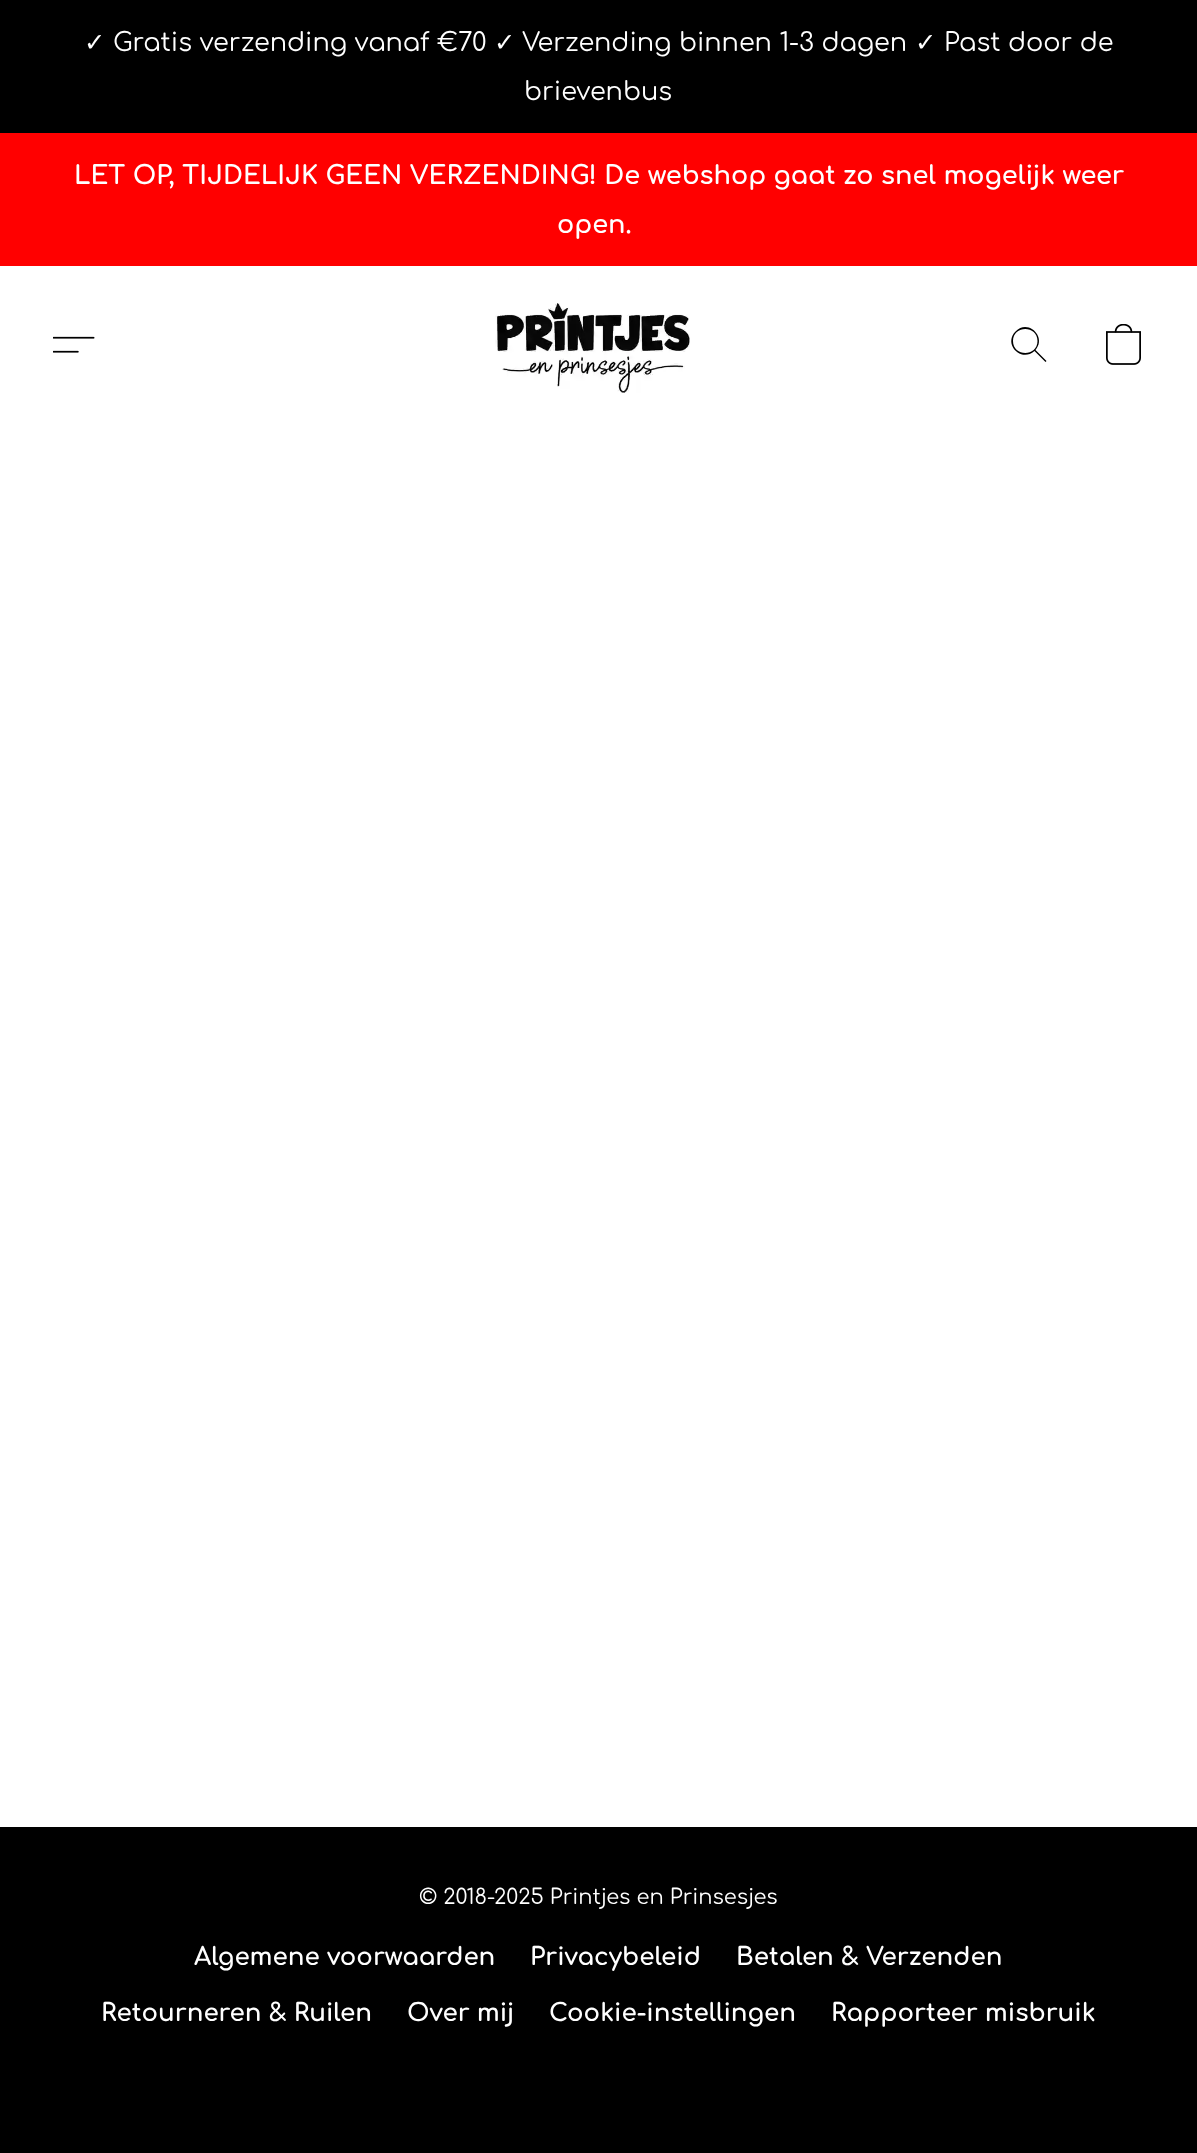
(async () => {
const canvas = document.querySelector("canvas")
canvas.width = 1197
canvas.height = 2153
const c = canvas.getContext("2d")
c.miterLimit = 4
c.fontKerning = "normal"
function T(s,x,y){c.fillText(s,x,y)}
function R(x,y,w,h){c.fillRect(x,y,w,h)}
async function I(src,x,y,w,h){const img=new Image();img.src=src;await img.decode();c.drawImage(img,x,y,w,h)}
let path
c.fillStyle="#fff"
R(0,0,1197,2153)
c.fillStyle="#000"
R(0,0,1197,133)
c.font="25.55px DejaVu Sans"
c.fillStyle="#fff"
T("✓",84,51)
c.font="25.55px Comfortaa"
T("Gratis verzending vanaf €70",113,51)
c.font="25.55px DejaVu Sans"
T("✓",494,51)
c.font="25.55px Comfortaa"
T("Verzending binnen 1-3 dagen",522,51)
c.font="25.55px DejaVu Sans"
T("✓",915,51)
c.font="25.55px Comfortaa"
T("Past door de",944,51)
T("brievenbus",524,100)
c.fillStyle="#f00"
R(0,133,1197,133)
c.font="bold 25.55px Comfortaa"
c.fillStyle="#fff"
T("LET OP, TIJDELIJK GEEN VERZENDING! De webshop gaat zo snel mogelijk weer",74,184)
T("open.",557,233)
await I("1.png",53,336,42,17)
await I("2.png",495,303,195,90)
c.fillStyle="#000"
path = new Path2D("M1037.5 341c0-16-24.5-16-24.5 0c0 16 24.5 16 24.5 0zm9 20l-1 1l-11-11c-13.5 12-31.5-7-19-19.5c12.5-13 31.5 5.5 20 18.5z")
c.fill(path,"evenodd")
await I("3.png",1106,324,35,41)
R(0,1827,1197,326)
c.font="21px Comfortaa"
c.fillStyle="#fff"
T("© 2018-2025 Printjes en Prinsesjes",419,1904)
c.font="bold 24.5px Comfortaa"
T("Algemene voorwaarden",194,1965)
T("Privacybeleid",530,1965)
T("Betalen & Verzenden",736,1965)
T("Retourneren & Ruilen",101,2021)
T("Over mij",407,2021)
T("Cookie-instellingen",549,2021)
T("Rapporteer misbruik",831,2021)
})()
